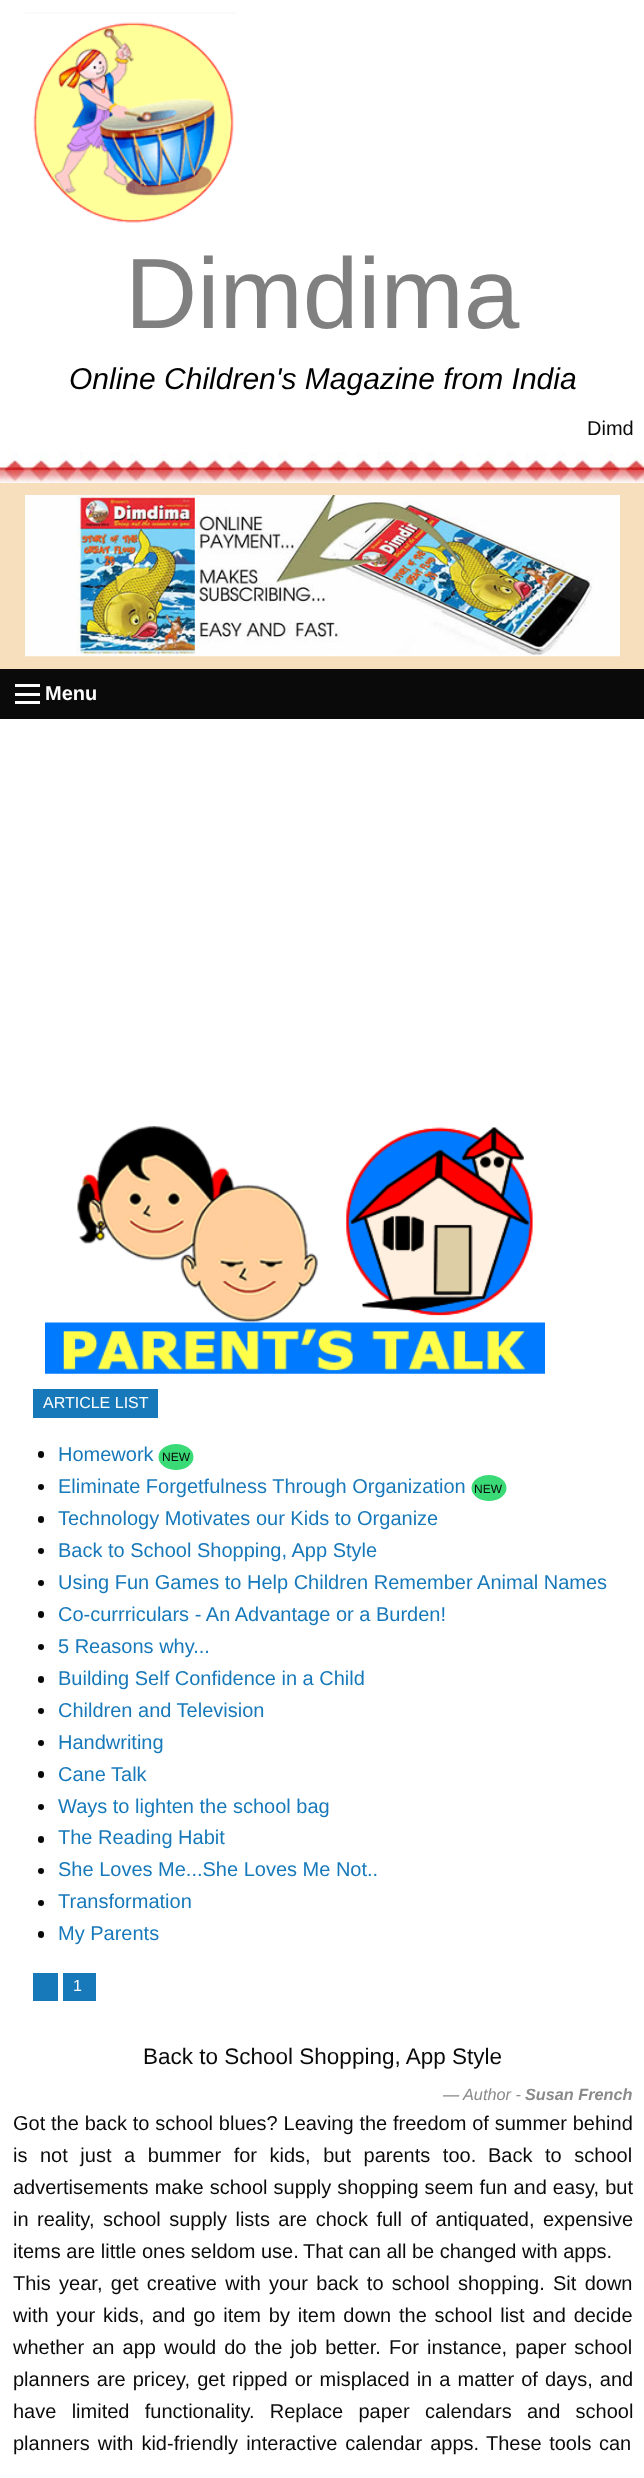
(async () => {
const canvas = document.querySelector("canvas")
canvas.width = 644
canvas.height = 2478
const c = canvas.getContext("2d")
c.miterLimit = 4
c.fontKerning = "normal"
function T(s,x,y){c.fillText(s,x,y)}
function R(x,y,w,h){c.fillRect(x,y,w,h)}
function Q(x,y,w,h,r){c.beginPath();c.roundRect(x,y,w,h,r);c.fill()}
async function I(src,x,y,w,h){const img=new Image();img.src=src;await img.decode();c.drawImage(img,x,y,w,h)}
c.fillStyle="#fff"
R(0,0,644,2478)
await I("1.png",25,12,212,211)
c.font="100px Liberation Sans"
c.fillStyle="#808080"
T("Dimdima",125,328)
c.font="italic 30px Liberation Sans"
c.fillStyle="#000"
T("Online Children's Magazine from India",69,389)
c.font="20px Liberation Sans"
c.fillStyle="#0a0a0a"
T("Dimd",587,435)
await I("2.png",0,452,644,31)
c.fillStyle="#f7dfbd"
R(0,483,644,186)
await I("3.png",25,495,595,162)
c.fillStyle="#0a0a0a"
R(0,669,644,50)
c.fillStyle="#fefefe"
R(15,701,25,3)
R(15,693,25,3)
R(15,684,25,3)
c.font="bold 20px Liberation Sans"
T("Menu",45,700)
await I("4.png",45,1126,500,248)
c.fillStyle="#1779ba"
R(33,1389,125,29)
c.font="16px Liberation Sans"
c.fillStyle="#fefefe"
T("ARTICLE LIST",43,1408)
c.fillStyle="#0a0a0a"
Q(38,1451,6,7,3)
c.font="20px Liberation Sans"
c.fillStyle="#1779ba"
T("Homework",58,1461)
c.fillStyle="#3adb76"
c.beginPath()
c.ellipse(176,1457,17.5,13,0,0,7)
c.fill()
c.font="12px Liberation Sans"
c.fillStyle="#0a0a0a"
T("NEW",162,1461)
c.beginPath()
c.arc(41,1487,3,0,7)
c.fill()
c.font="20px Liberation Sans"
c.fillStyle="#1779ba"
T("Eliminate Forgetfulness Through Organization",58,1493)
c.fillStyle="#3adb76"
c.beginPath()
c.ellipse(489,1488,17.5,13,0,0,7)
c.fill()
c.font="12px Liberation Sans"
c.fillStyle="#0a0a0a"
T("NEW",474,1493)
Q(38,1516,6,7,3)
c.font="20px Liberation Sans"
c.fillStyle="#1779ba"
T("Technology Motivates our Kids to Organize",58,1525)
c.fillStyle="#0a0a0a"
c.beginPath()
c.arc(41,1551,3,0,7)
c.fill()
c.fillStyle="#1779ba"
T("Back to School Shopping, App Style",58,1557)
c.fillStyle="#0a0a0a"
c.beginPath()
c.arc(41,1583,3,0,7)
c.fill()
c.fillStyle="#1779ba"
T("Using Fun Games to Help Children Remember Animal Names",58,1589)
c.fillStyle="#0a0a0a"
Q(38,1611,6,7,3)
c.fillStyle="#1779ba"
T("Co-currriculars - An Advantage or a Burden!",58,1621)
c.fillStyle="#0a0a0a"
c.beginPath()
c.arc(41,1647,3,0,7)
c.fill()
c.fillStyle="#1779ba"
T("5 Reasons why...",58,1653)
c.fillStyle="#0a0a0a"
Q(38,1676,6,7,3)
c.fillStyle="#1779ba"
T("Building Self Confidence in a Child",58,1685)
c.fillStyle="#0a0a0a"
c.beginPath()
c.arc(41,1711,3,0,7)
c.fill()
c.fillStyle="#1779ba"
T("Children and Television",58,1717)
c.fillStyle="#0a0a0a"
c.beginPath()
c.arc(41,1743,3,0,7)
c.fill()
c.fillStyle="#1779ba"
T("Handwriting",58,1749)
c.fillStyle="#0a0a0a"
Q(38,1771,6,7,3)
c.fillStyle="#1779ba"
T("Cane Talk",58,1781)
c.fillStyle="#0a0a0a"
c.beginPath()
c.arc(41,1807,3,0,7)
c.fill()
c.fillStyle="#1779ba"
T("Ways to lighten the school bag",58,1813)
c.fillStyle="#0a0a0a"
Q(38,1836,6,7,3)
c.fillStyle="#1779ba"
T("The Reading Habit",58,1844)
c.fillStyle="#0a0a0a"
c.beginPath()
c.arc(41,1871,3,0,7)
c.fill()
c.fillStyle="#1779ba"
T("She Loves Me...She Loves Me Not..",58,1876)
c.fillStyle="#0a0a0a"
c.beginPath()
c.arc(41,1903,3,0,7)
c.fill()
c.fillStyle="#1779ba"
T("Transformation",58,1908)
c.fillStyle="#0a0a0a"
Q(38,1931,6,7,3)
c.fillStyle="#1779ba"
T("My Parents",58,1940)
R(33,1973,25,28)
R(63,1973,33,28)
c.font="16px Liberation Sans"
c.fillStyle="#fefefe"
T("1",73,1991)
c.font="22.5px Liberation Sans"
c.fillStyle="#0a0a0a"
T("Back to School Shopping, App Style",143,2064)
c.font="italic 16.25px Liberation Sans"
c.fillStyle="#8a8a8a"
T("—",443,2100)
T("Author -",463,2100)
c.font="italic bold 16.25px Liberation Sans"
T("Susan French",525,2100)
c.wordSpacing="0.25px"
c.font="20px Liberation Sans"
c.fillStyle="#0a0a0a"
T("Got the back to school blues? Leaving the freedom of summer behind",13,2130)
c.wordSpacing="7px"
T("is not just a bummer for kids, but parents too.",13,2162)
T("Back to school",488,2162)
c.wordSpacing="0.5px"
T("advertisements make school supply shopping seem fun and easy, but",13,2194)
c.wordSpacing="2.9px"
T("in reality, school supply lists are chock full of antiquated, expensive",13,2226)
c.wordSpacing="0px"
T("items are little ones seldom use.",13,2258)
T("That can all be changed with apps.",303,2258)
c.wordSpacing="2.75px"
T("This year, get creative with your back to school shopping.",13,2290)
T("Sit down",553,2290)
c.wordSpacing="2.25px"
T("with your kids, and go item by item down the school list and decide",13,2322)
c.wordSpacing="2.5px"
T("whether an app would do the job better.",13,2354)
T("For instance, paper school",389,2354)
c.wordSpacing="1.5px"
T("planners are pricey, get ripped or misplaced in a matter of days, and",13,2386)
c.wordSpacing="9.75px"
T("have limited functionality. Replace paper calendars and school",13,2418)
c.wordSpacing="2.5px"
T("planners with kid-friendly interactive calendar apps.",13,2450)
c.wordSpacing="2px"
T("These tools can",486,2450)
})()
